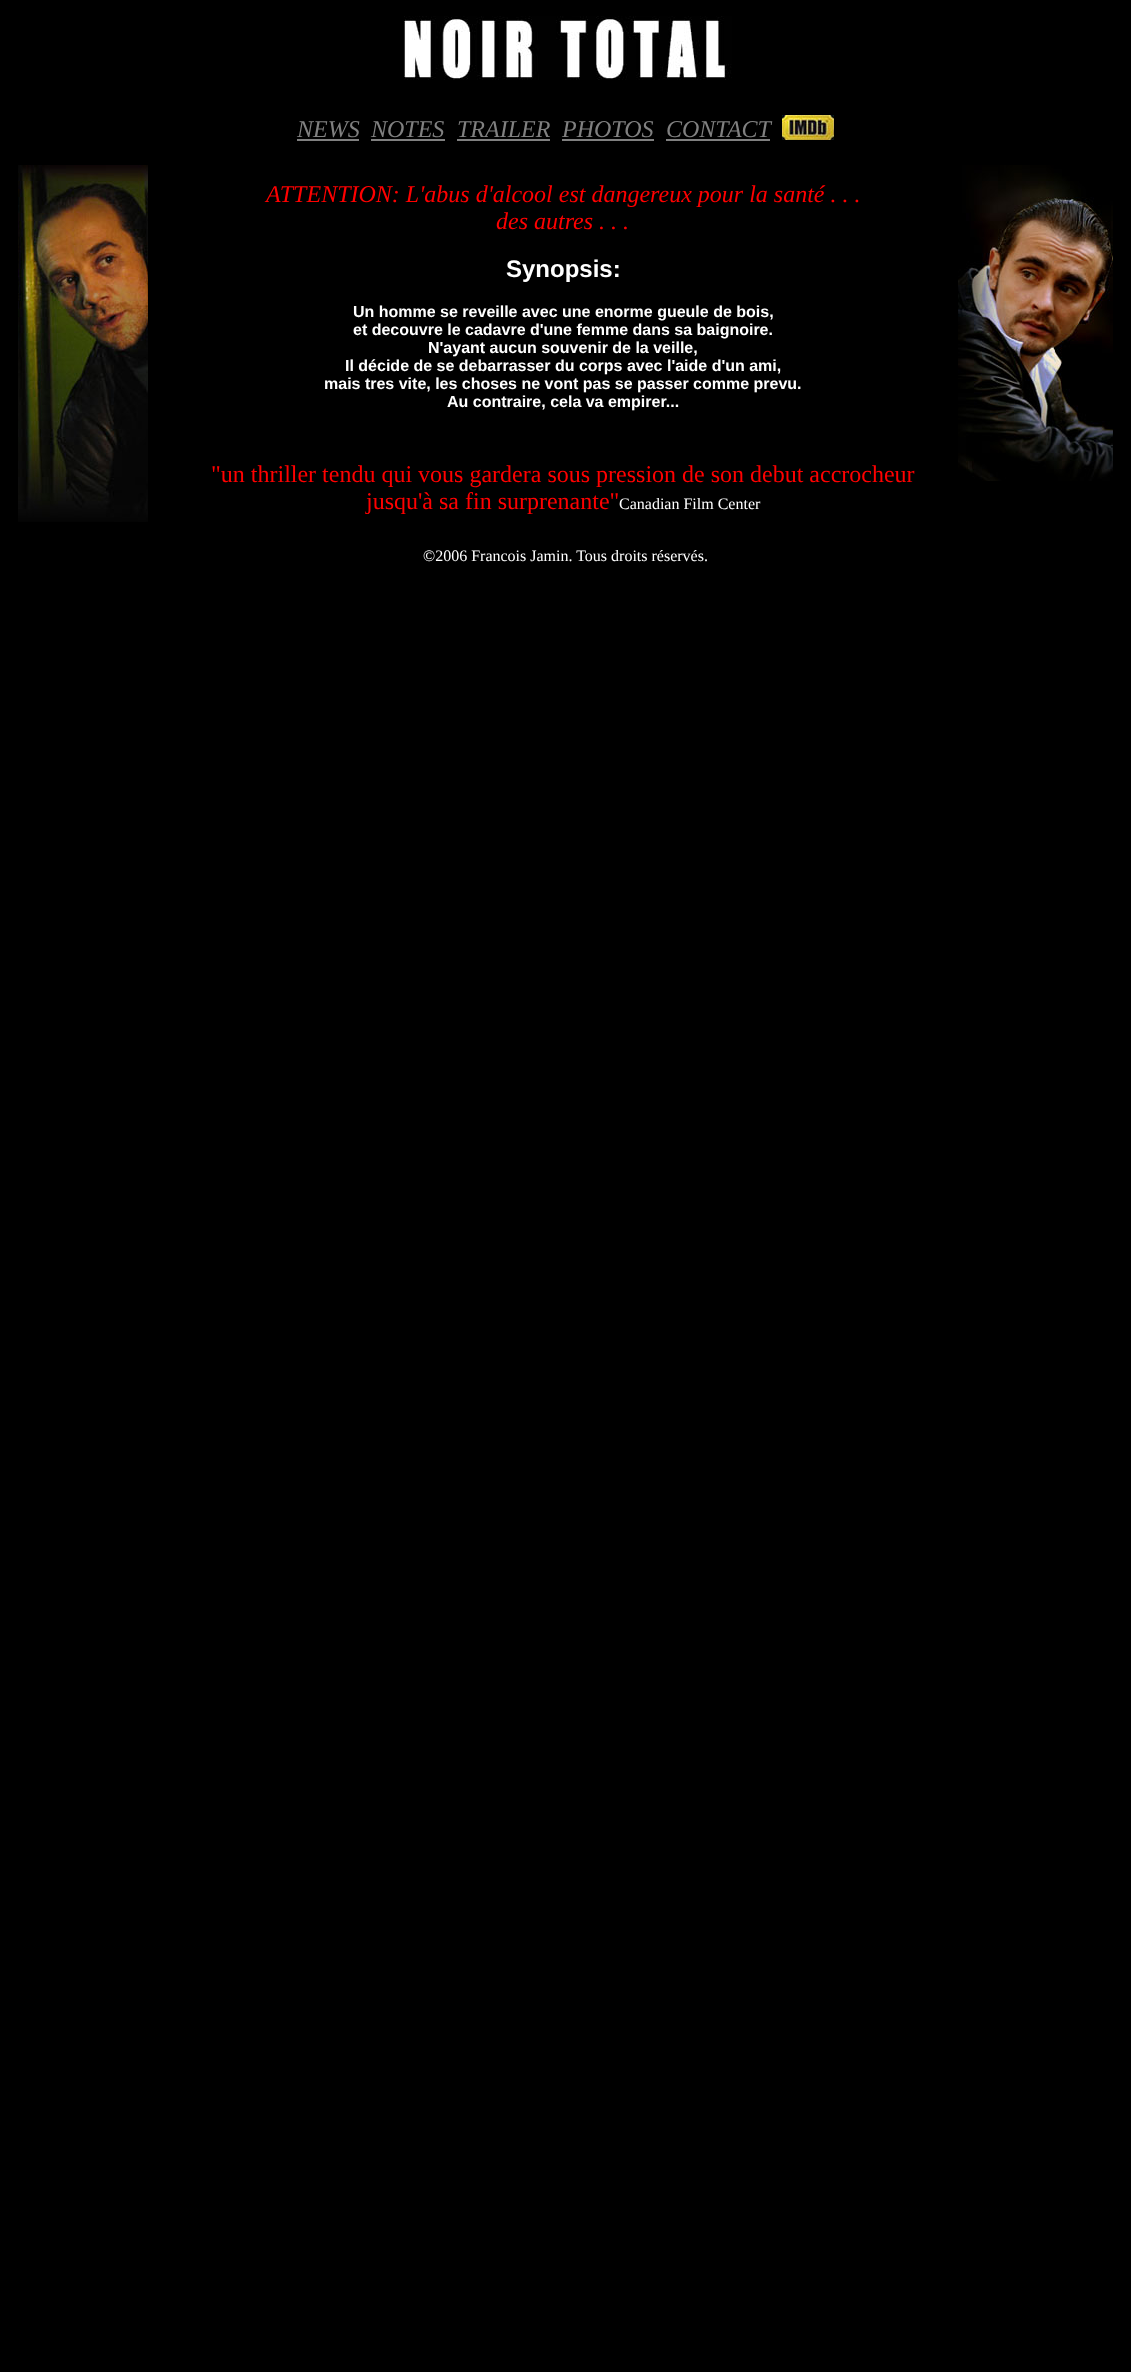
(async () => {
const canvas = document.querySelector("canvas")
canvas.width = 1131
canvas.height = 2372
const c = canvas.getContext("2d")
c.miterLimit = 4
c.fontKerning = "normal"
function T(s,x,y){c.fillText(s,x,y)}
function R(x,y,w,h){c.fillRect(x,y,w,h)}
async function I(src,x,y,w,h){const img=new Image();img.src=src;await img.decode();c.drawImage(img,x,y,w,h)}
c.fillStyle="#000"
R(0,0,1131,2372)
await I("1.png",404,16,328,64)
c.font="italic 24px Liberation Serif"
c.fillStyle="#808080"
T("NEWS",297,137)
R(297,139,62,2)
T("NOTES",371,137)
R(371,139,74,2)
T("TRAILER",457,137)
R(457,139,93,2)
T("PHOTOS",562,137)
R(562,139,92,2)
T("CONTACT",666,137)
R(666,139,104,2)
await I("2.png",782,115,52,25)
await I("3.png",18,165,130,357)
c.fillStyle="#f00"
T("ATTENTION: L'abus d'alcool est dangereux pour la santé . . .",266,202)
T("des autres . . .",496,229)
c.font="bold 24px Liberation Sans"
c.fillStyle="#fff"
T("Synopsis:",506,277)
c.font="bold 16px Liberation Sans"
T("Un homme se reveille avec une enorme gueule de bois,",353,317)
T("et decouvre le cadavre d'une femme dans sa baignoire.",353,335)
T("N'ayant aucun souvenir de la veille,",428,353)
T("Il décide de se debarrasser du corps avec l'aide d'un ami,",345,371)
T("mais tres vite, les choses ne vont pas se passer comme prevu.",324,389)
T("Au contraire, cela va empirer...",447,407)
c.font="24px Liberation Serif"
c.fillStyle="#f00"
T("\"un thriller tendu qui vous gardera sous pression de son debut accrocheur",211,482)
T("jusqu'à sa fin surprenante\"",366,509)
c.font="16px Liberation Serif"
c.fillStyle="#fff"
T("Canadian Film Center",619,509)
await I("4.png",958,165,155,316)
T("©2006 Francois Jamin. Tous droits réservés.",423,561)
})()
